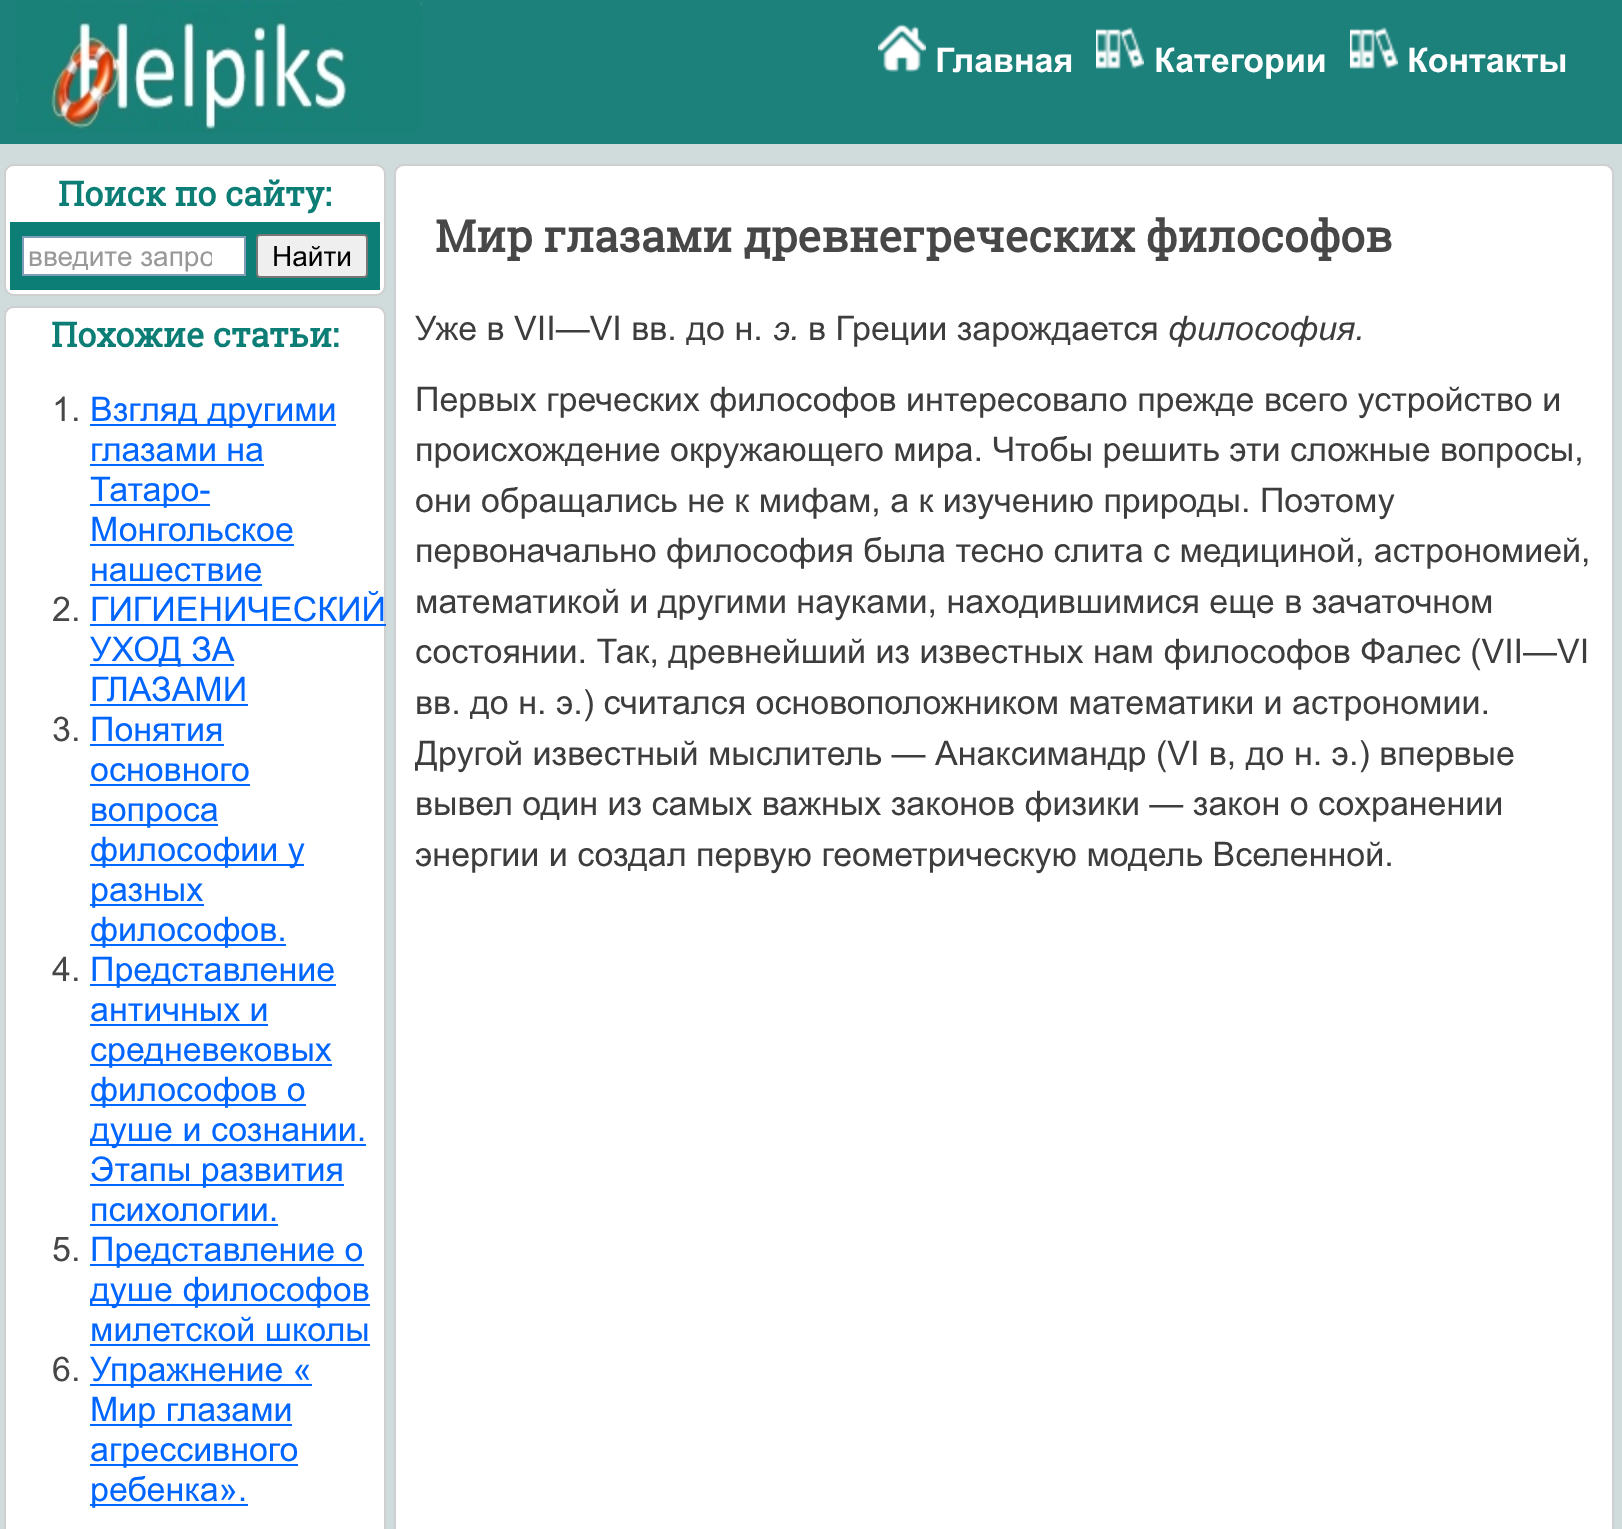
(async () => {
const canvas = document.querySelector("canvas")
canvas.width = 1622
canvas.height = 1529
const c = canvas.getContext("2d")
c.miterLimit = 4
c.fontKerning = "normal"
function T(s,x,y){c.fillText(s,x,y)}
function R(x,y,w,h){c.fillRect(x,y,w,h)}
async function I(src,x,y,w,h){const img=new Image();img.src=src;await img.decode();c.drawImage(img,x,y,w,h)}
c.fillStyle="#d0dbdb"
R(0,0,1622,1529)
c.fillStyle="#1c807b"
R(0,0,1622,144)
await I("1.png",16,2,406,131)
await I("2.png",878,24,48,48)
c.font="bold 34px Arial"
c.fillStyle="#fff"
T("Главная",935,72)
await I("3.png",1096,27,48,42)
T("Категории",1154,72)
await I("3.png",1350,27,48,42)
T("Контакты",1407,72)
c.beginPath()
c.roundRect(5,165,380,130,9)
c.fill()
c.strokeStyle="#d0cfcf"
c.lineWidth=2
c.stroke()
c.font="bold 34px Roboto Slab"
c.fillStyle="#0c7e76"
T("Поиск по сайту:",58,206)
R(10,222,370,68)
c.fillStyle="#fff"
c.beginPath()
c.rect(23,237,222,38)
c.fill()
c.strokeStyle="#7f9db9"
c.stroke()
c.save()
c.beginPath()
c.rect(28,240,184,32)
c.clip()
c.font="28px Arial"
c.fillStyle="#999"
T("введите запро",28,266)
c.restore()
c.fillStyle="#efefef"
c.beginPath()
c.roundRect(257,235,110,42,3)
c.fill()
c.strokeStyle="#767676"
c.stroke()
c.font="28px Arial"
c.fillStyle="#000"
T("Найти",272,266)
c.fillStyle="#fff"
c.beginPath()
c.roundRect(5,307,380,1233,9)
c.fill()
c.strokeStyle="#d0cfcf"
c.stroke()
c.font="bold 34px Roboto Slab"
c.fillStyle="#0c7e76"
T("Похожие статьи:",51,347)
c.font="34px Arial"
c.fillStyle="#474747"
T("1.",52,421)
c.fillStyle="#06f"
R(90,424,246,2)
T("Взгляд другими",90,421)
T("глазами на",90,461)
R(90,464,174,2)
R(90,504,120,2)
T("Татаро-",90,501)
T("Монгольское",90,541)
R(90,544,204,2)
T("нашествие",90,581)
R(90,584,172,2)
c.fillStyle="#474747"
T("2.",52,621)
c.fillStyle="#06f"
T("ГИГИЕНИЧЕСКИЙ",90,621)
R(90,624,296,2)
R(90,664,144,2)
T("УХОД ЗА",90,661)
T("ГЛАЗАМИ",90,701)
R(90,704,158,2)
c.fillStyle="#474747"
T("3.",52,741)
c.fillStyle="#06f"
T("Понятия",90,741)
R(90,744,134,2)
T("основного",90,781)
R(90,784,160,2)
R(90,824,128,2)
T("вопроса",90,821)
R(90,864,214,2)
T("философии у",90,861)
R(90,904,114,2)
T("разных",90,901)
R(90,944,196,2)
T("философов.",90,941)
c.fillStyle="#474747"
T("4.",52,981)
c.fillStyle="#06f"
R(90,984,246,2)
T("Представление",90,981)
T("античных и",90,1021)
R(90,1024,178,2)
R(90,1064,242,2)
T("средневековых",90,1061)
R(90,1104,216,2)
T("философов о",90,1101)
R(90,1144,276,2)
T("душе и сознании.",90,1141)
R(90,1184,254,2)
T("Этапы развития",90,1181)
T("психологии.",90,1221)
R(90,1224,188,2)
c.fillStyle="#474747"
T("5.",52,1261)
c.fillStyle="#06f"
R(90,1264,274,2)
T("Представление о",90,1261)
R(90,1304,280,2)
T("душе философов",90,1301)
T("милетской школы",90,1341)
R(90,1344,280,2)
c.fillStyle="#474747"
T("6.",52,1381)
c.fillStyle="#06f"
R(90,1384,222,2)
T("Упражнение «",90,1381)
R(90,1424,202,2)
T("Мир глазами",90,1421)
R(90,1464,208,2)
T("агрессивного",90,1461)
R(90,1504,158,2)
T("ребенка».",90,1501)
c.fillStyle="#fff"
c.beginPath()
c.roundRect(395,165,1218,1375,9)
c.fill()
c.stroke()
c.font="bold 44px Roboto Slab"
c.fillStyle="#474747"
T("Мир глазами древнегреческих философов",435,252)
c.font="34px Arial"
c.fillStyle="#3d3d3d"
T("Уже в VII—VI вв. до н.",415,340)
c.font="italic 34px Arial"
T("э.",773,340)
c.font="34px Arial"
T("в Греции зарождается",808,340)
c.font="italic 34px Arial"
T("философия.",1168,340)
c.font="34px Arial"
T("Первых греческих философов интересовало прежде всего устройство и",415,411)
T("происхождение окружающего мира. Чтобы решить эти сложные вопросы,",415,461)
T("они обращались не к мифам, а к изучению природы. Поэтому",415,512)
T("первоначально философия была тесно слита с медициной, астрономией,",415,562)
T("математикой и другими науками, находившимися еще в зачаточном",415,613)
T("состоянии. Так, древнейший из известных нам философов Фалес (VII—VI",415,663)
T("вв. до н. э.) считался основоположником математики и астрономии.",415,714)
T("Другой известный мыслитель — Анаксимандр (VI в, до н. э.) впервые",415,765)
T("вывел один из самых важных законов физики — закон о сохранении",415,815)
T("энергии и создал первую геометрическую модель Вселенной.",415,866)
})()
